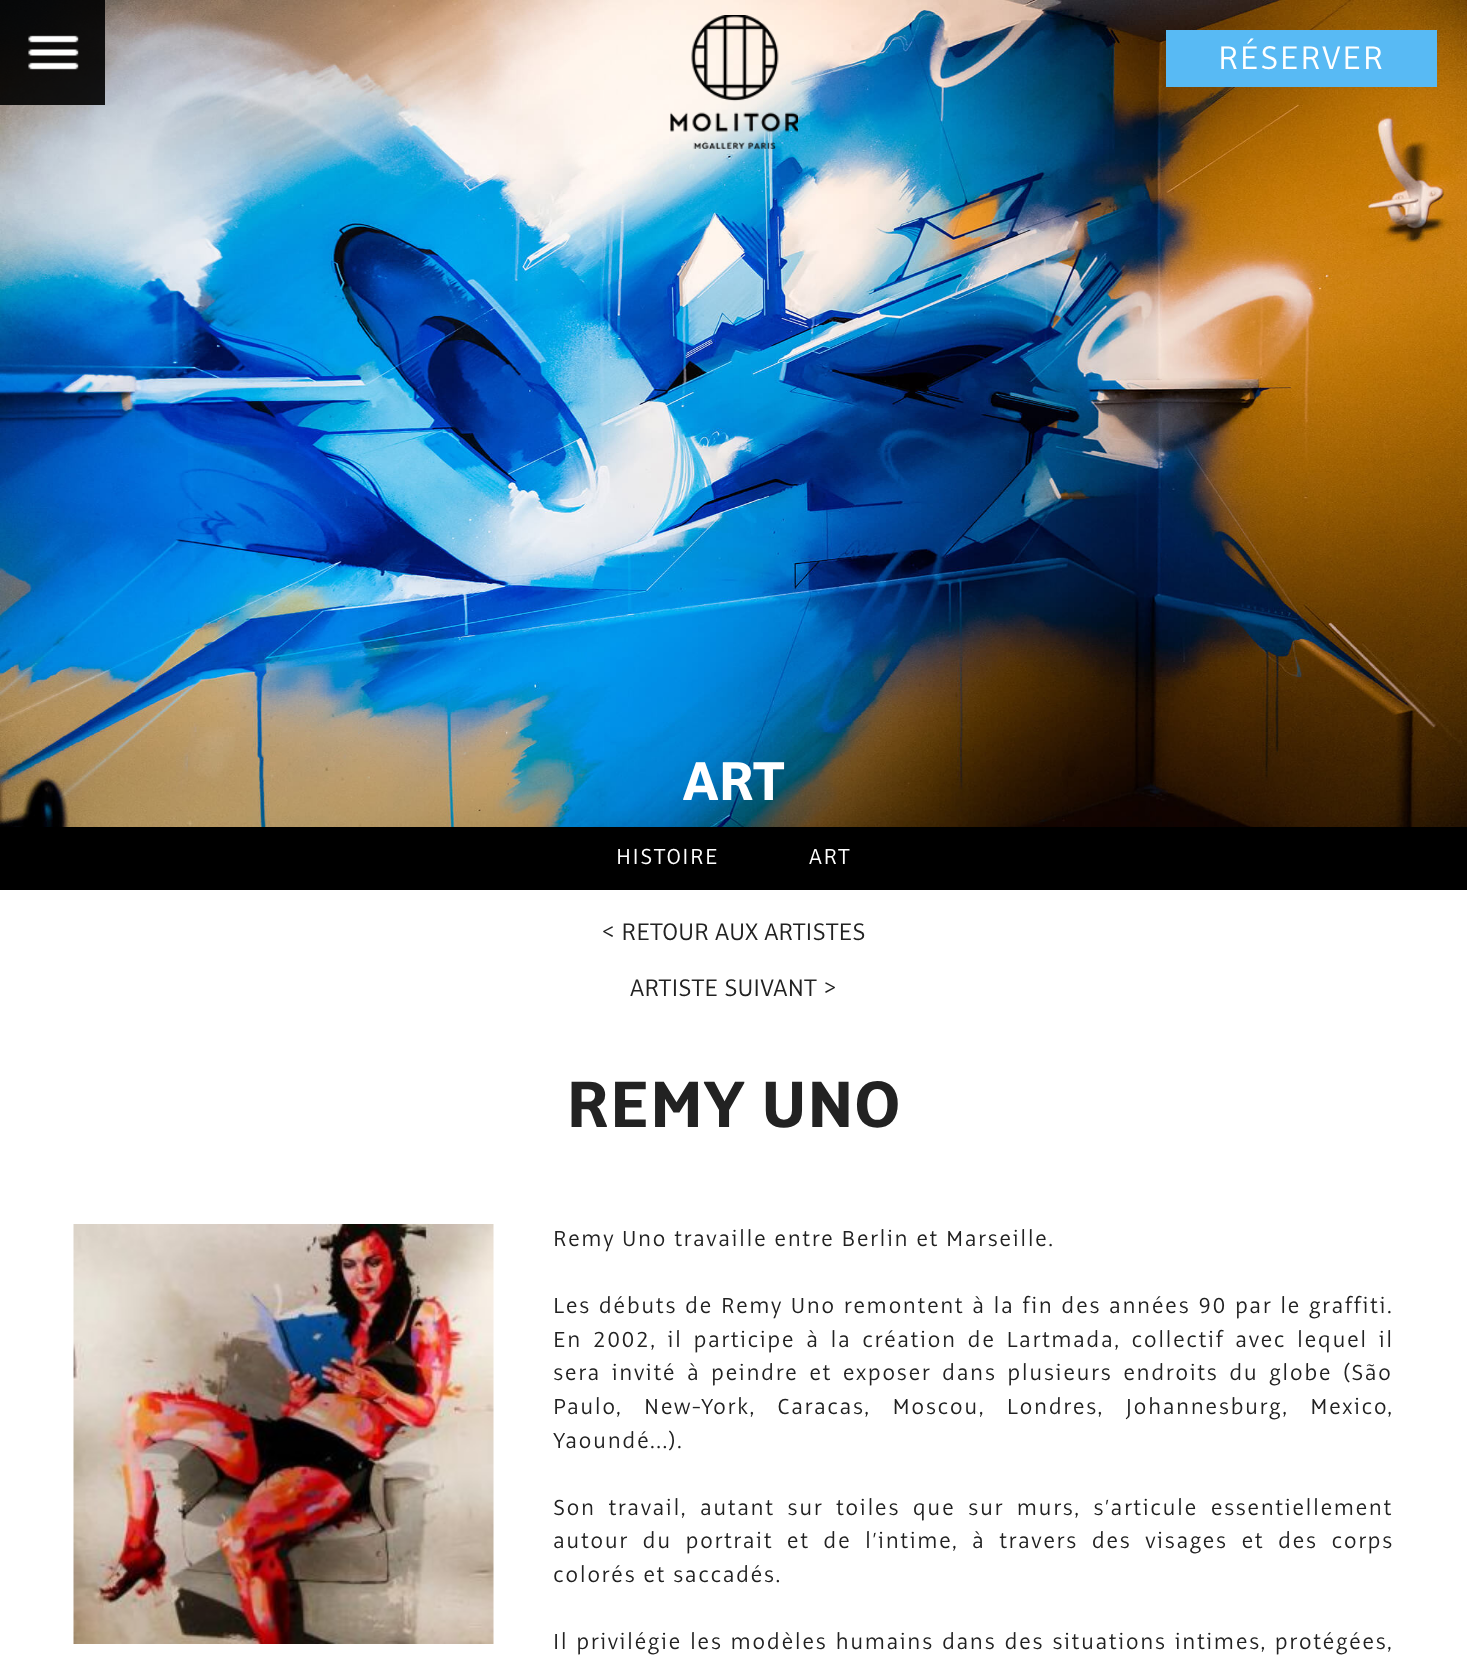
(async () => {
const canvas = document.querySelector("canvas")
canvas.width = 1467
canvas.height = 1658
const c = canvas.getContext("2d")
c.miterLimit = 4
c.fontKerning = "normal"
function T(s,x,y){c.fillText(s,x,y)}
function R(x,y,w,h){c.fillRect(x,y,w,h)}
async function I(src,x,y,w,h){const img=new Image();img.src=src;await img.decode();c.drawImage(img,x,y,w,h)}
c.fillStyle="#fff"
R(0,0,1467,1658)
await I("3.png",0,0,1467,827)
await I("1.png",670,15,128,134)
c.fillStyle="#000000e6"
R(0,0,105,105)
await I("2.png",28,35,51,35)
c.fillStyle="#58baf4"
R(1166,30,271,57)
c.letterSpacing="1.5px"
c.font="300 36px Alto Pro"
c.fillStyle="#fff"
T("RÉSERVER",1218,69)
c.letterSpacing="0px"
c.font="bold 60px Alto Pro"
T("ART",683,800)
c.fillStyle="#000"
R(0,827,1467,63)
c.letterSpacing="1.5px"
c.font="300 24px Alto Pro"
c.fillStyle="#fff"
T("HISTOIRE",616,864)
T("ART",809,864)
c.letterSpacing="0px"
c.font="300 26.4px Alto Pro"
c.fillStyle="#222"
T("< RETOUR AUX ARTISTES",601,940)
T("ARTISTE SUIVANT >",630,996)
c.font="bold 72px Alto Pro"
T("REMY UNO",566,1127)
await I("4.png",73,1224,421,420)
c.letterSpacing="1.5px"
c.font="300 24px Alto Pro"
T("Remy Uno travaille entre Berlin et Marseille.",553,1246)
c.wordSpacing="0.9px"
T("Les débuts de Remy Uno remontent à la fin des années 90 par le graffiti.",553,1313)
c.wordSpacing="3.9px"
T("En 2002, il participe à la création de Lartmada, collectif avec lequel il",553,1347)
c.wordSpacing="3.75px"
T("sera invité à peindre et exposer dans plusieurs endroits du globe (São",553,1380)
c.wordSpacing="14.75px"
T("Paulo, New-York, Caracas, Moscou, Londres, Johannesburg, Mexico,",553,1414)
c.wordSpacing="0px"
T("Yaoundé...).",553,1448)
c.wordSpacing="5.75px"
T("Son travail, autant sur toiles que sur murs, s’articule essentiellement",553,1515)
c.wordSpacing="6.75px"
T("autour du portrait et de l’intime, à travers des visages et des corps",553,1548)
c.wordSpacing="0px"
T("colorés et saccadés.",553,1582)
c.wordSpacing="1px"
T("Il privilégie les modèles humains dans des situations intimes, protégées,",553,1649)
})()
